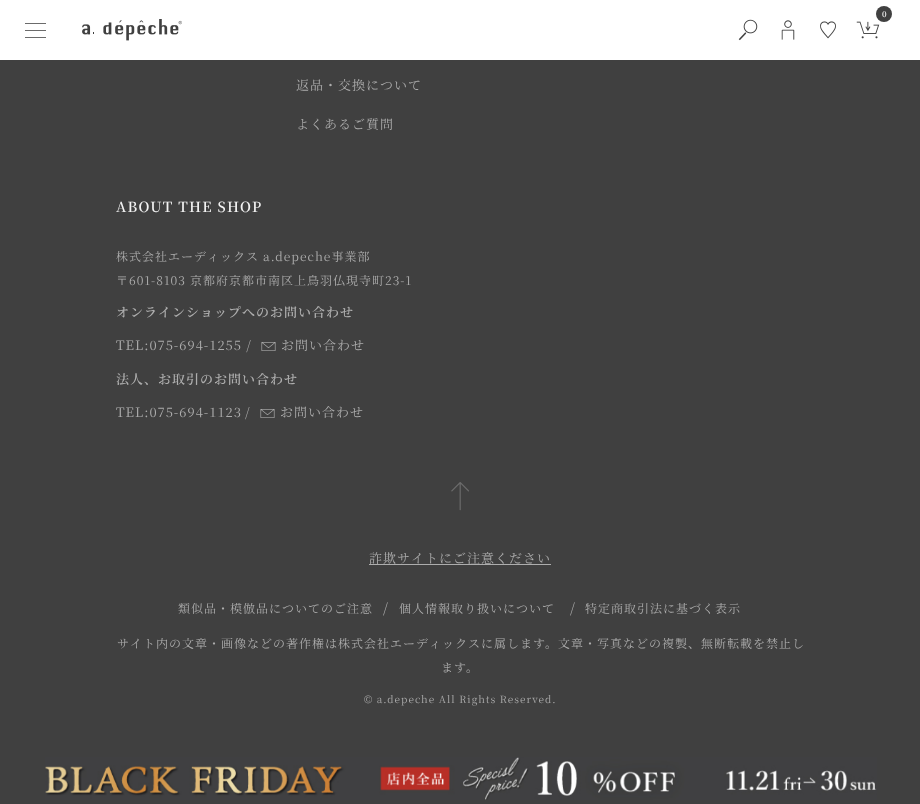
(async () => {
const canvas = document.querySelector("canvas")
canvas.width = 920
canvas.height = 804
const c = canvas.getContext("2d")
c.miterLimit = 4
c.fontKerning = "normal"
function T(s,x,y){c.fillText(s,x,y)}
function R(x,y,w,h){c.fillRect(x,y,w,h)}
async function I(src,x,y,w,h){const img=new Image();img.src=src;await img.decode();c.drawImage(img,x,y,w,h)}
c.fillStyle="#404040"
R(0,0,920,804)
c.fillStyle="#fff"
R(0,0,920,60)
await I("1.png",856,21,24,18)
c.fillStyle="#404040"
c.beginPath()
c.arc(884,14,8,0,7)
c.fill()
c.font="600 8px Noto Serif JP"
c.fillStyle="#fff"
T("0",882,17)
await I("2.png",781,20,14,20)
await I("3.png",820,21,16,18)
await I("4.png",738,19,20,22)
c.fillStyle="#6b6b6b"
R(25,23,21,1)
R(25,30,21,1)
R(25,37,21,1)
await I("5.png",82,19,100,22)
c.letterSpacing="1px"
c.font="13px Noto Serif JP"
c.fillStyle="#adadad"
T("返品・交換について",296,90)
T("よくあるご質問",296,129)
c.letterSpacing="1.25px"
c.font="600 14px Noto Serif JP"
c.fillStyle="#f3f3f3"
T("ABOUT THE SHOP",116,212)
c.letterSpacing="1px"
c.font="12px Noto Serif JP"
c.fillStyle="#adadad"
T("株式会社エーディックス a.depeche事業部",116,261)
T("〒601-8103 京都府京都市南区上鳥羽仏現寺町23-1",116,285)
c.font="600 13px Noto Serif JP"
T("オンラインショップへのお問い合わせ",116,317)
c.font="13px Noto Serif JP"
T("TEL:075-694-1255 /",116,350)
await I("6.png",261,342,15,9)
T("お問い合わせ",281,350)
c.font="600 13px Noto Serif JP"
T("法人、お取引のお問い合わせ",116,384)
c.font="13px Noto Serif JP"
T("TEL:075-694-1123",116,417)
T("/",245,417)
await I("6.png",260,409,15,9)
T("お問い合わせ",280,417)
await I("7.png",451,482,18,29)
T("詐欺サイトにご注意ください",369,563)
R(369,564,182,1)
c.font="12px Noto Serif JP"
T("類似品・模倣品についてのご注意",178,613)
c.font="14px Noto Serif JP"
T("/",383,613)
c.font="12px Noto Serif JP"
T("個人情報取り扱いについて",399,613)
c.font="14px Noto Serif JP"
T("/",570,613)
c.font="12px Noto Serif JP"
T("特定商取引法に基づく表示",585,613)
T("サイト内の文章・画像などの著作権は株式会社エーディックスに属します。文章・写真などの複製、無断転載を禁止し",117,648)
T("ます。",441,672)
c.font="10px Noto Serif JP"
T("© a.depeche All Rights Reserved.",364,703)
await I("8.png",45,757,832,43)
})()
